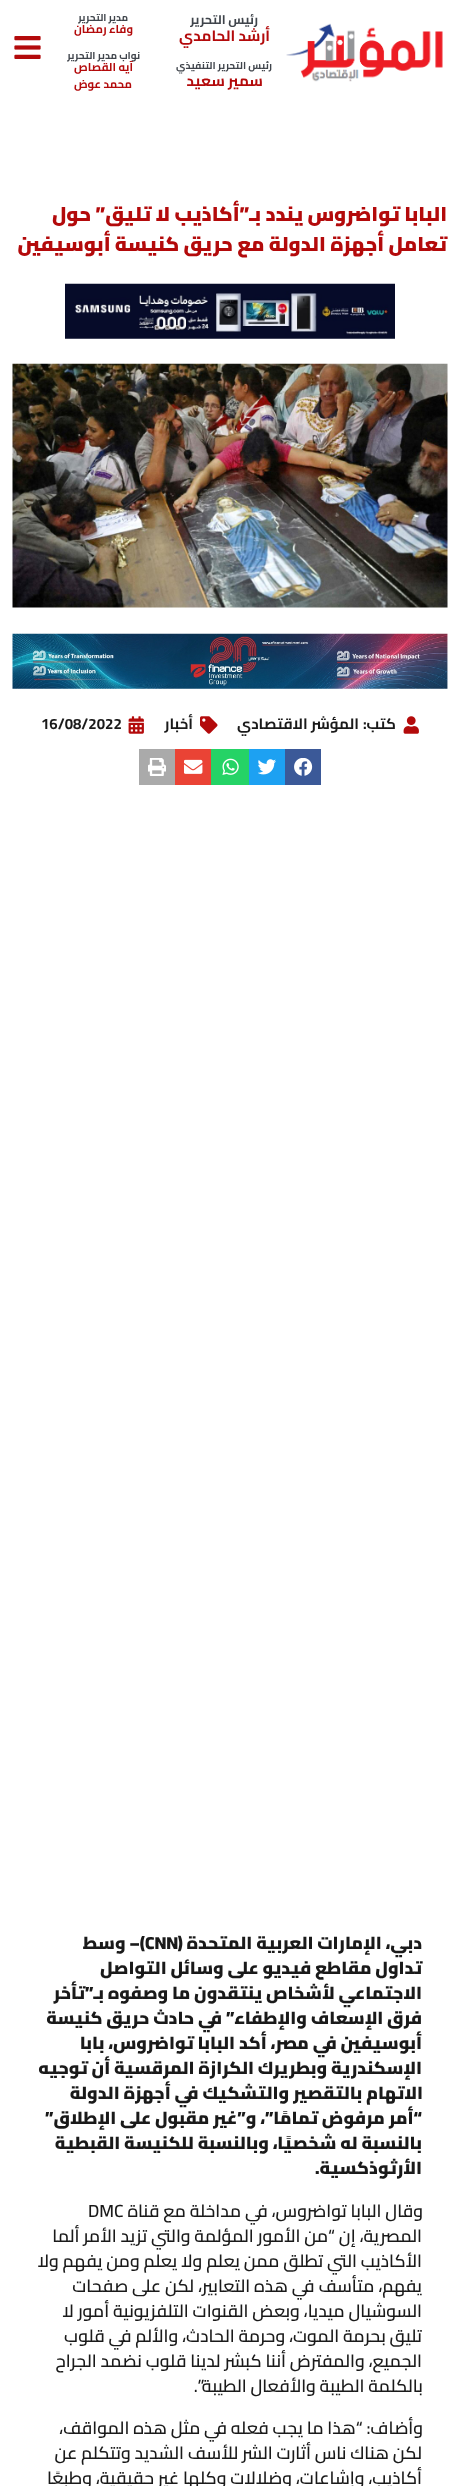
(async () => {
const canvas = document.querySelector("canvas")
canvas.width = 459
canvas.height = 2486
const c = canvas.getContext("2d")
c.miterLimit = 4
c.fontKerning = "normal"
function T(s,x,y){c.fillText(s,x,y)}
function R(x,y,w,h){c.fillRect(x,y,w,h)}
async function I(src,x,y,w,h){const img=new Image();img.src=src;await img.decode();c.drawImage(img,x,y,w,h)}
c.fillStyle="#fff"
R(0,0,459,2486)
await I("1.png",286,23,157,59)
c.direction="rtl"
c.font="bold 12.5px Cairo"
c.fillStyle="#3f444b"
T("رئيس التحرير",258,24)
c.font="bold 15px Cairo"
c.fillStyle="#b30a0b"
T("أرشد الحامدي",270,41)
c.font="bold 10px Cairo"
c.fillStyle="#3f444b"
T("رئيس التحرير التنفيذي",272,69)
c.font="bold 15px Cairo"
c.fillStyle="#b30a0b"
T("سمير سعيد",263,86)
c.font="bold 10px Cairo"
c.fillStyle="#3f444b"
T("مدير التحرير",128,21)
c.font="bold 11.25px Cairo"
c.fillStyle="#b30a0b"
T("وفاء رمضان",133,33)
c.font="bold 10px Cairo"
c.fillStyle="#3f444b"
T("نواب مدير التحرير",140,59)
c.font="bold 11.25px Cairo"
c.fillStyle="#b30a0b"
T("آيه القصاص",133,71)
T("محمد عوض",132,88)
await I("2.png",14,36,27,23)
c.font="900 20px Cairo"
T("البابا تواضروس يندد بـ”أكاذيب لا تليق” حول",447,221)
T("تعامل أجهزة الدولة مع حريق كنيسة أبوسيفين",447,251)
await I("3.png",65,283,330,56)
await I("4.png",12,363,436,245)
await I("5.png",12,633,436,56)
await I("6.png",403,716,16,18)
c.font="bold 15px Cairo"
c.fillStyle="#1a1a1a"
T("كتب:",396,729)
T("المؤشر الاقتصادي",359,729)
await I("7.png",200,716,18,18)
T("أخبار",193,729)
await I("8.png",128,716,16,18)
c.direction="ltr"
T("16/08/2022",41,729)
c.fillStyle="#3b5998"
R(285,749,36,36)
await I("9.png",294,758,19,18)
c.fillStyle="#1da1f2"
R(249,749,36,36)
await I("10.png",258,759,18,16)
c.fillStyle="#25d366"
R(211,749,38,36)
await I("11.png",222,758,17,17)
c.fillStyle="#ea4335"
R(175,749,36,36)
await I("12.png",184,759,19,15)
c.fillStyle="#aaa"
R(139,749,36,36)
await I("13.png",148,758,18,18)
c.direction="rtl"
c.font="900 17.5px Cairo"
c.fillStyle="#1a1a1a"
T("دبي، الإمارات العربية المتحدة (",422,1949)
c.direction="ltr"
T("CNN",145,1949)
c.direction="rtl"
T(")– وسط",145,1949)
T("تداول مقاطع فيديو على وسائل التواصل",422,1974)
T("الاجتماعي لأشخاص ينتقدون ما وصفوه بـ”تأخر",422,1999)
T("فرق الإسعاف والإطفاء” في حادث حريق كنيسة",422,2024)
T("أبوسيفين في مصر، أكد البابا تواضروس، بابا",422,2049)
T("الإسكندرية وبطريرك الكرازة المرقسية أن توجيه",422,2074)
T("الاتهام بالتقصير والتشكيك في أجهزة الدولة",423,2099)
T("“أمر مرفوض تمامًا”، و”غير مقبول على الإطلاق”",422,2124)
T("بالنسبة له شخصيًا، وبالنسبة للكنيسة القبطية",422,2149)
T("الأرثوذكسية.",422,2174)
c.font="600 17.5px Cairo"
T("وقال البابا تواضروس، في مداخلة مع قناة",423,2217)
c.direction="ltr"
T("DMC",88,2217)
c.direction="rtl"
T("المصرية، إن “من الأمور المؤلمة والتي تزيد الأمر ألما",422,2242)
T("الأكاذيب التي تطلق ممن يعلم ولا يعلم ومن يفهم ولا",422,2267)
T("يفهم، متأسف في هذه التعابير، لكن على صفحات",422,2292)
T("السوشيال ميديا، وبعض القنوات التلفزيونية أمور لا",422,2317)
T("تليق بحرمة الموت، وحرمة الحادث، والألم في قلوب",422,2342)
T("الجميع، والمفترض أننا كبشر لدينا قلوب نضمد الجراح",422,2367)
T("بالكلمة الطيبة والأفعال الطيبة”.",423,2392)
T("وأضاف: “هذا ما يجب فعله في مثل هذه المواقف،",423,2434)
T("لكن هناك ناس أثارت الشر للأسف الشديد وتتكلم عن",422,2459)
T("أكاذيب، وإشاعات، وضلالات وكلها غير حقيقية، وطبعًا",422,2484)
})()
